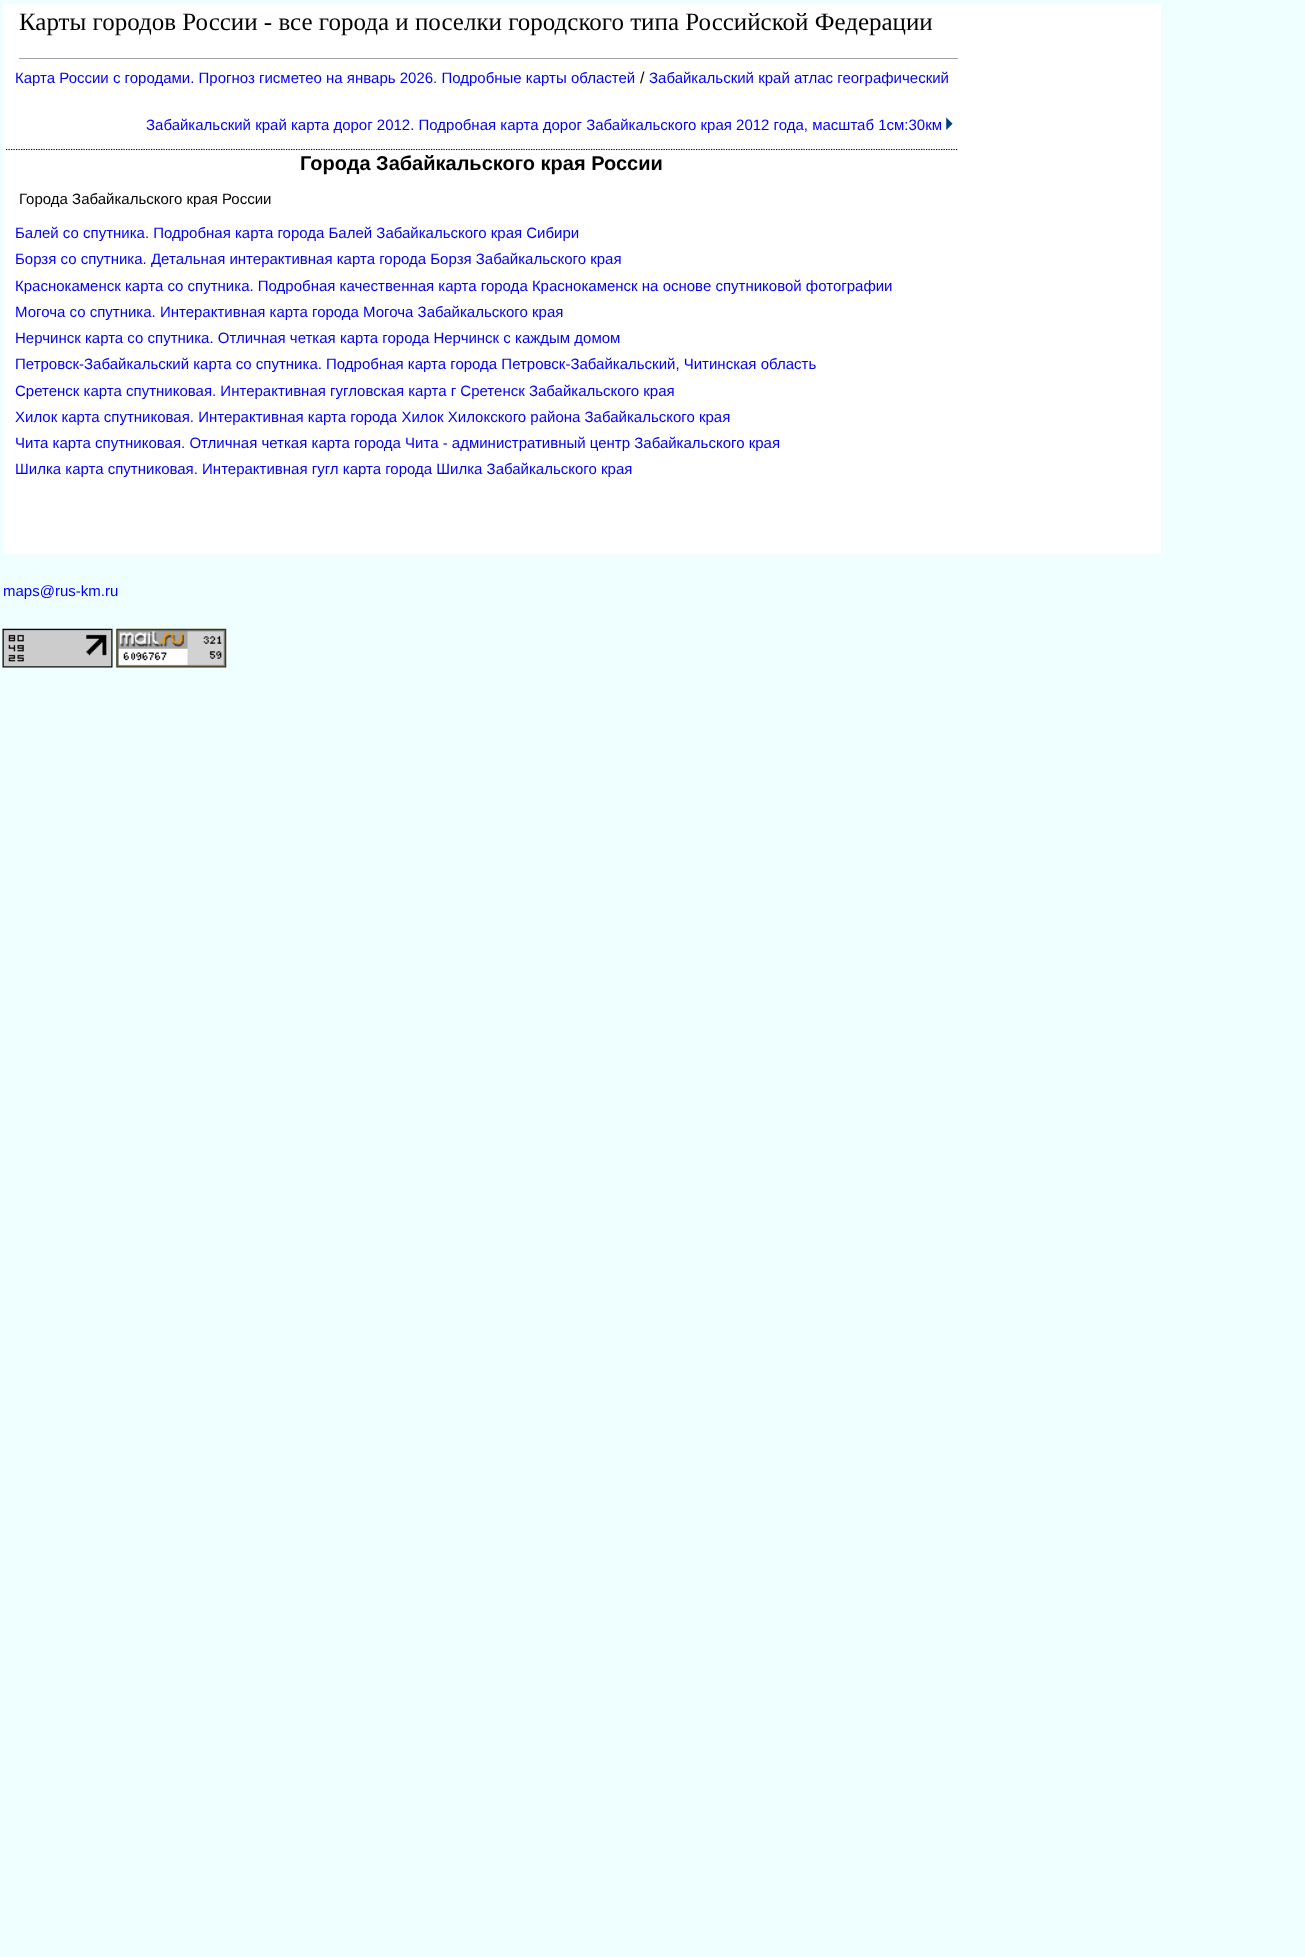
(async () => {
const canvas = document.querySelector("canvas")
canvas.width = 1305
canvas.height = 1957
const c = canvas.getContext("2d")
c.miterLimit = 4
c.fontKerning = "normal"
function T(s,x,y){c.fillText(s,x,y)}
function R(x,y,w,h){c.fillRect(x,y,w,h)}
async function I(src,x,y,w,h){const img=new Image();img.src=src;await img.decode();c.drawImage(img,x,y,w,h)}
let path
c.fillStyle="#efffff"
R(0,0,1305,1957)
c.fillStyle="#fff"
R(3,4,1158,550)
c.fillStyle="#a1a4a6"
R(19,58,939,1)
c.font="25px Liberation Serif"
c.fillStyle="#000"
T("Карты городов России - все города и поселки городского типа Российской Федерации",19,30)
c.font="15px Liberation Sans"
c.fillStyle="#00e"
T("Карта России с городами. Прогноз гисметео на январь 2026. Подробные карты областей",15,83)
c.font="16px Liberation Sans"
c.fillStyle="#000"
T("/",640,83)
c.font="15px Liberation Sans"
c.fillStyle="#00e"
T("Забайкальский край атлас географический",649,83)
T("Забайкальский край карта дорог 2012. Подробная карта дорог Забайкальского края 2012 года, масштаб 1см:30км",146,130)
await I("1.png",946,117,7,13)
path = new Path2D("M6 149.5h951.5")
c.strokeStyle="#000"
c.lineWidth=1.2
c.setLineDash([1.25,1.25])
c.stroke(path)
c.font="bold 20px Liberation Sans"
c.fillStyle="#000"
T("Города Забайкальского края России",300,170)
c.font="15px Liberation Sans"
T("Города Забайкальского края России",19,204)
c.fillStyle="#00e"
T("Балей со спутника. Подробная карта города Балей Забайкальского края Сибири",15,238)
T("Борзя со спутника. Детальная интерактивная карта города Борзя Забайкальского края",15,264)
T("Краснокаменск карта со спутника. Подробная качественная карта города Краснокаменск на основе спутниковой фотографии",15,291)
T("Могоча со спутника. Интерактивная карта города Могоча Забайкальского края",15,317)
T("Нерчинск карта со спутника. Отличная четкая карта города Нерчинск с каждым домом",15,343)
T("Петровск-Забайкальский карта со спутника. Подробная карта города Петровск-Забайкальский, Читинская область",15,369)
T("Сретенск карта спутниковая. Интерактивная гугловская карта г Сретенск Забайкальского края",15,396)
T("Хилок карта спутниковая. Интерактивная карта города Хилок Хилокского района Забайкальского края",15,422)
T("Чита карта спутниковая. Отличная четкая карта города Чита - административный центр Забайкальского края",15,448)
T("Шилка карта спутниковая. Интерактивная гугл карта города Шилка Забайкальского края",15,474)
T("maps@rus-km.ru",3,596)
await I("2.png",2,628,111,40)
await I("3.png",116,628,111,40)
})()
